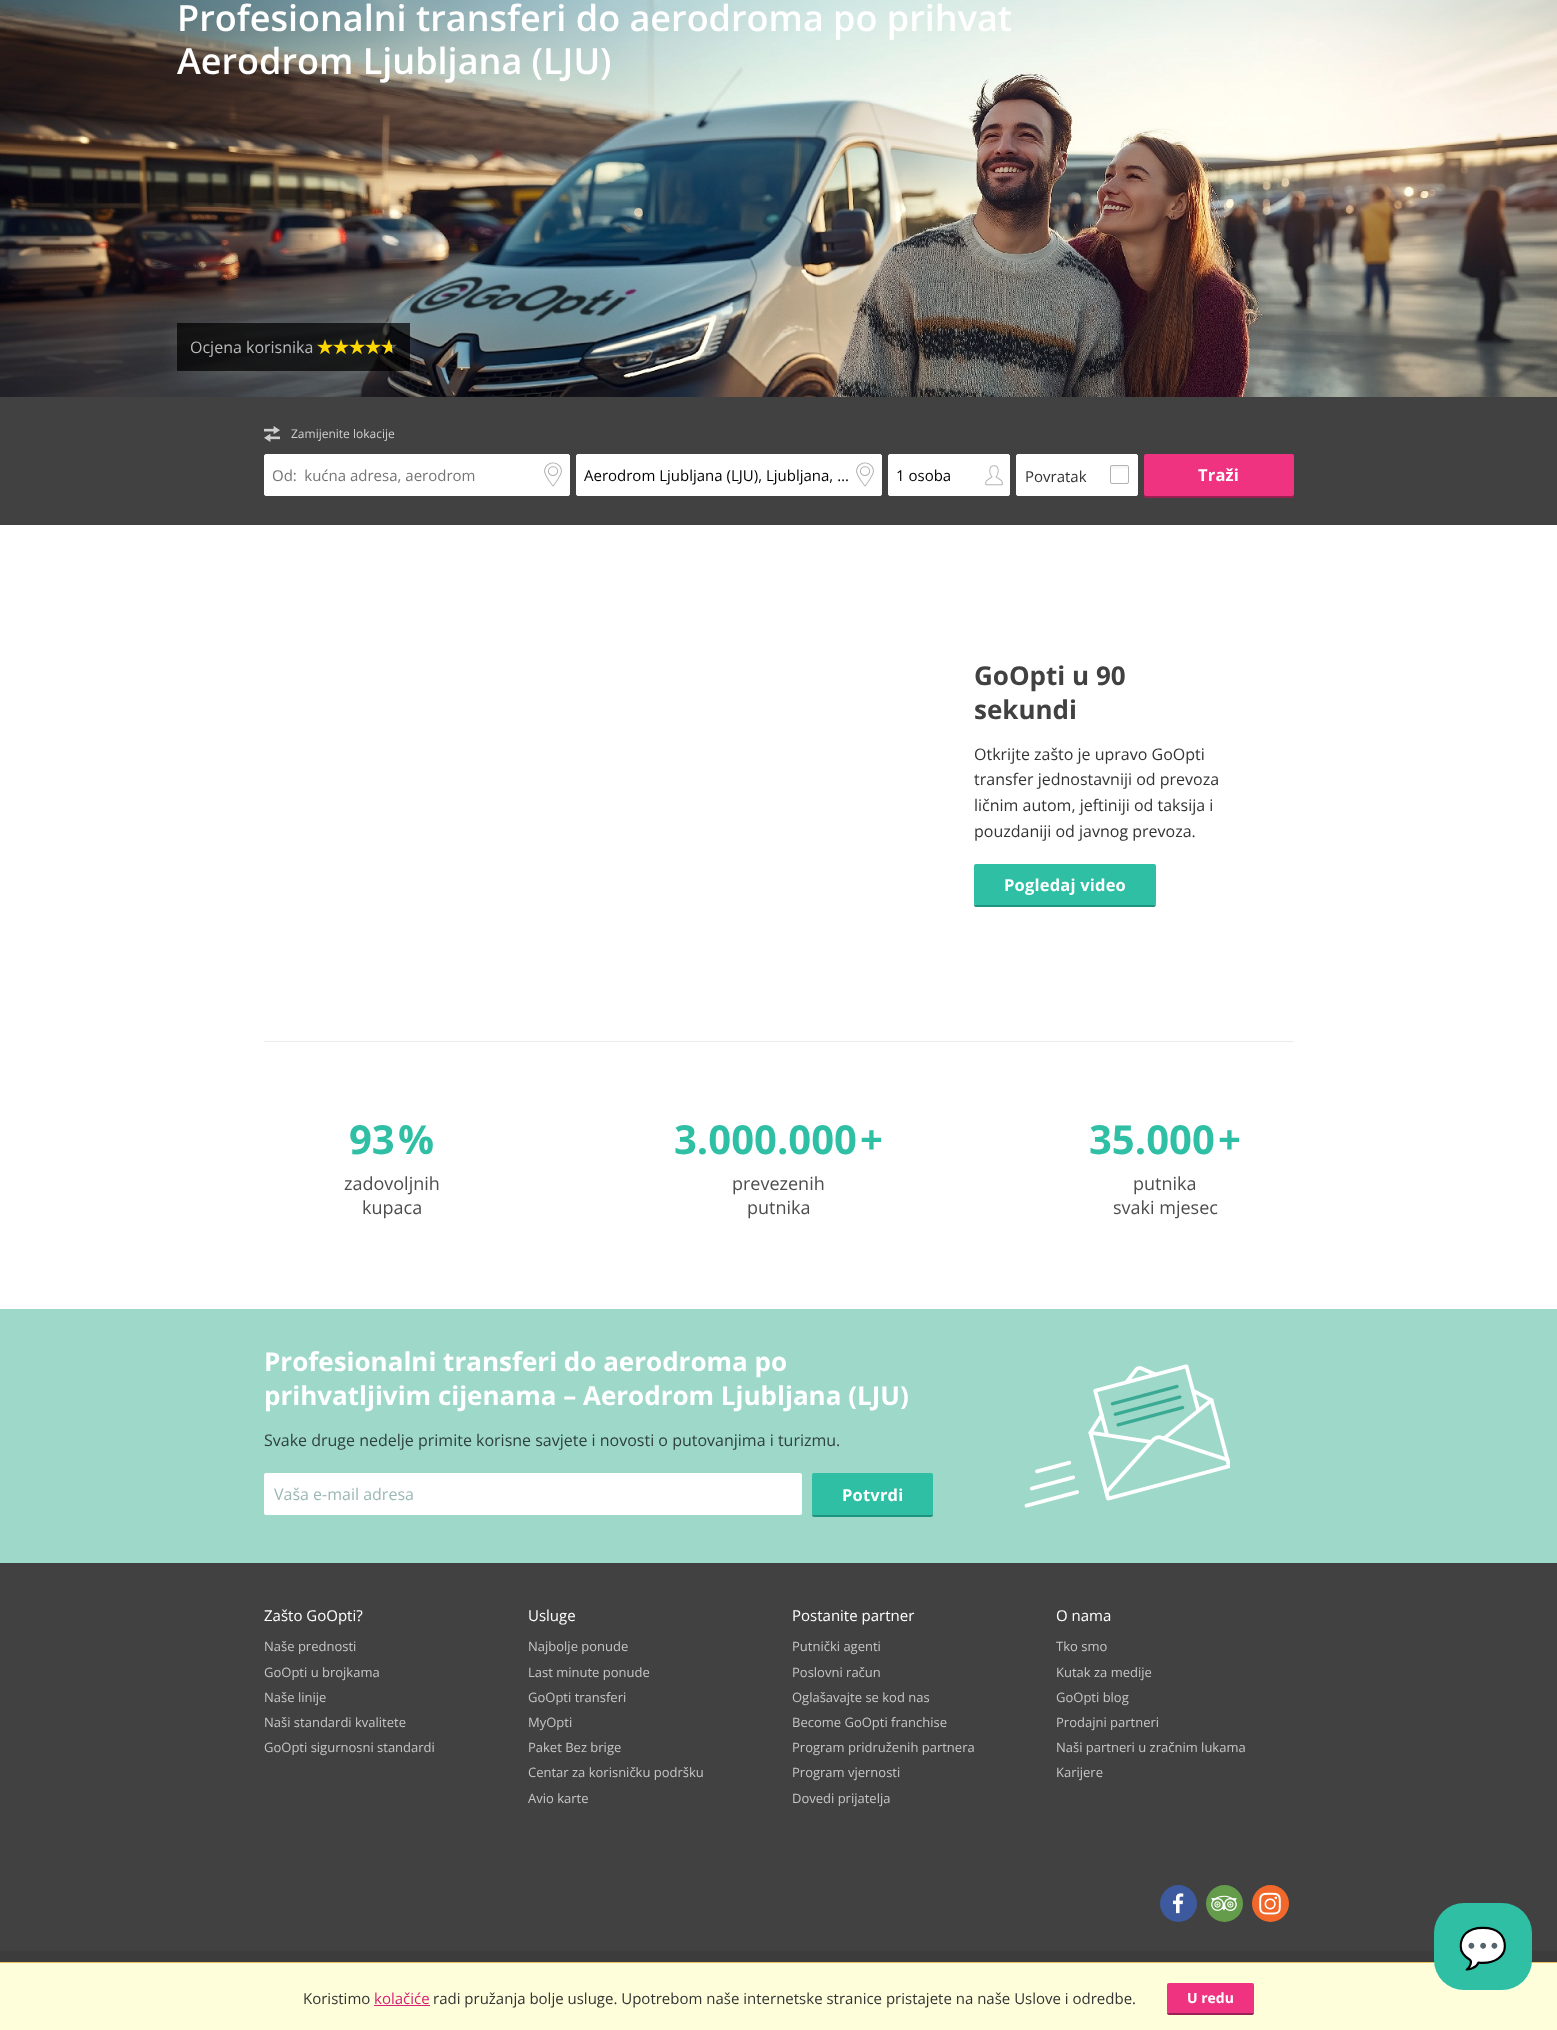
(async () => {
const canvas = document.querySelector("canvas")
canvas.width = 1557
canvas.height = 2030
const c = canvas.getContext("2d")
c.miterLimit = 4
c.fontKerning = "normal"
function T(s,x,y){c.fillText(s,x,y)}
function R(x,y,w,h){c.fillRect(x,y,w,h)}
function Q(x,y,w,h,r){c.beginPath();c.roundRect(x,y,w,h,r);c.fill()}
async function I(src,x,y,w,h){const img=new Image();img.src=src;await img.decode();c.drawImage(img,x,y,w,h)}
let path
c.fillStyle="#fff"
R(0,0,1557,2030)
await I("1.png",0,0,1557,397)
c.font="600 36px Open Sans"
T("Profesionalni transferi do aerodroma po prihvat",177,31)
T("Aerodrom Ljubljana (LJU)",177,74)
c.save()
path = new Path2D("M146 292h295v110h-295zm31 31h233v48h-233z")
c.clip(path,"evenodd")
c.fillStyle="#ffffff1a"
c.filter="blur(10px)"
c.beginPath()
c.rect(177,323,233,48)
c.fill()
c.filter="none"
c.restore()
c.fillStyle="#000000b3"
R(177,323,233,48)
c.font="16px Open Sans"
c.fillStyle="#b8b9b9"
T("Ocjena korisnika",190,353)
await I("2.png",317,339,75,16)
await I("3.png",392,344,5,10)
c.fillStyle="#414141"
R(0,397,1557,128)
await I("4.png",264,426,16,16)
c.font="12px Open Sans"
c.fillStyle="#d0d0d0"
T("Zamijenite lokacije",291,438)
c.fillStyle="#fff"
c.beginPath()
c.roundRect(264.5,454.5,305,41,1.5)
c.fill()
c.strokeStyle="#fff"
c.stroke()
c.font="15px Open Sans"
c.fillStyle="#757575"
T("Od: kućna adresa, aerodrom",272,481)
await I("5.png",544,462,18,25)
c.fillStyle="#fff"
c.beginPath()
c.roundRect(576.5,454.5,305,41,1.5)
c.fill()
c.stroke()
c.fillStyle="#000"
T("Aerodrom Ljubljana (LJU), Ljubljana, …",584,481)
await I("5.png",856,462,18,25)
c.fillStyle="#fff"
c.beginPath()
c.roundRect(888.5,454.5,121,41,1.5)
c.fill()
c.stroke()
c.fillStyle="#000"
T("1 osoba",896,481)
await I("6.png",985,465,18,21)
c.fillStyle="#fff"
c.beginPath()
c.roundRect(1016.5,454.5,121,41,1.5)
c.fill()
c.stroke()
c.fillStyle="#333"
T("Povratak",1025,482)
c.fillStyle="#f7f7f7"
path = new Path2D("M1112 469c3 0 15-1 16 0c0-3.5 0-3-3.5-3h-10c-4.5 0-3.5 0-3.5 4.5c0-1 .5-1.5 1-1.5z")
c.fill(path)
c.beginPath()
c.roundRect(1110.5,465.5,18,18,1.5)
c.strokeStyle="#b3b3b3"
c.stroke()
c.fillStyle="#9b2154"
path = new Path2D("M1144 494c0 2 0 4 2 4h147c1-1 1-3 1-4c0 1-1 2-2 2h-146c-1 0-2-1-2-2z")
c.fill(path)
c.fillStyle="#ef3381"
Q(1144,454,150,42,2)
c.letterSpacing="0.2px"
c.font="bold 16.5px Open Sans"
c.fillStyle="#fff"
T("Traži",1198,481)
c.fillStyle="#ebebeb"
R(264,1041,1030,1)
c.letterSpacing="0px"
c.font="bold 26px Open Sans"
c.fillStyle="#414141"
T("GoOpti u 90",974,685)
T("sekundi",974,719)
c.font="16px Open Sans"
c.fillStyle="#333"
T("Otkrijte zašto je upravo GoOpti",974,760)
T("transfer jednostavniji od prevoza",974,785)
T("ličnim autom, jeftiniji od taksija i",974,811)
T("pouzdaniji od javnog prevoza.",974,837)
c.fillStyle="#1d947f"
path = new Path2D("M974 903c0 2 0 4 2 4h178c2 0 2-3 2-4c0 1-1 2-2 2h-178c-1 0-2-1-2-2z")
c.fill(path)
c.fillStyle="#2ebfa5"
Q(974,864,182,41,2)
c.letterSpacing="0.2px"
c.font="bold 16.5px Open Sans"
c.fillStyle="#fff"
T("Pogledaj video",1004,891)
c.letterSpacing="0px"
c.font="bold 40px Open Sans"
c.fillStyle="#2ebfa5"
T("93",349,1154)
T("%",398,1154)
c.font="18px Open Sans"
c.fillStyle="#4d4d4d"
T("zadovoljnih",344,1190)
T("kupaca",362,1214)
c.font="bold 40px Open Sans"
c.fillStyle="#2ebfa5"
T("3.000.000",674,1154)
T("+",860,1154)
c.font="18px Open Sans"
c.fillStyle="#4d4d4d"
T("prevezenih",732,1190)
T("putnika",747,1214)
c.font="bold 40px Open Sans"
c.fillStyle="#2ebfa5"
T("35.000",1089,1154)
T("+",1218,1154)
c.font="18px Open Sans"
c.fillStyle="#4d4d4d"
T("putnika",1133,1190)
T("svaki mjesec",1113,1214)
c.fillStyle="#9dd8c8"
R(0,1309,1557,254)
c.font="bold 26px Open Sans"
c.fillStyle="#fff"
T("Profesionalni transferi do aerodroma po",264,1371)
T("prihvatljivim cijenama – Aerodrom Ljubljana (LJU)",264,1405)
c.font="16px Open Sans"
c.fillStyle="#2f413c"
T("Svake druge nedelje primite korisne savjete i novosti o putovanjima i turizmu.",264,1446)
c.fillStyle="#fff"
Q(264,1473,538,42,2)
c.fillStyle="#9ab8b3"
T("Vaša e-mail adresa",274,1500)
c.fillStyle="#1d947f"
path = new Path2D("M812 1513v2c0 1 1 2 2 2h117c1 0 2-1 2-2v-2c0 1-1 2-2 2h-117c-1 0-2-1-2-2z")
c.fill(path)
c.fillStyle="#2ebfa5"
Q(812,1473,121,42,2)
c.letterSpacing="0.2px"
c.font="bold 16.5px Open Sans"
c.fillStyle="#fff"
T("Potvrdi",842,1501)
await I("7.png",1024,1364,206,144)
c.fillStyle="#414141"
R(0,1563,1557,388)
c.letterSpacing="0px"
c.font="15px Open Sans"
c.fillStyle="#fff"
T("Zašto GoOpti?",264,1621)
c.font="13px Open Sans"
c.fillStyle="#c6c6c6"
T("Naše prednosti",264,1651)
T("GoOpti u brojkama",264,1677)
T("Naše linije",264,1702)
T("Naši standardi kvalitete",264,1727)
T("GoOpti sigurnosni standardi",264,1752)
c.font="15px Open Sans"
c.fillStyle="#fff"
T("Usluge",528,1621)
c.font="13px Open Sans"
c.fillStyle="#c6c6c6"
T("Najbolje ponude",528,1651)
T("Last minute ponude",528,1677)
T("GoOpti transferi",528,1702)
T("MyOpti",528,1727)
T("Paket Bez brige",528,1752)
T("Centar za korisničku podršku",528,1777)
T("Avio karte",528,1803)
c.font="15px Open Sans"
c.fillStyle="#fff"
T("Postanite partner",792,1621)
c.font="13px Open Sans"
c.fillStyle="#c6c6c6"
T("Putnički agenti",792,1651)
T("Poslovni račun",792,1677)
T("Oglašavajte se kod nas",792,1702)
T("Become GoOpti franchise",792,1727)
T("Program pridruženih partnera",792,1752)
T("Program vjernosti",792,1777)
T("Dovedi prijatelja",792,1803)
c.font="15px Open Sans"
c.fillStyle="#fff"
T("O nama",1056,1621)
c.font="13px Open Sans"
c.fillStyle="#c6c6c6"
T("Tko smo",1056,1651)
T("Kutak za medije",1056,1677)
T("GoOpti blog",1056,1702)
T("Prodajni partneri",1056,1727)
T("Naši partneri u zračnim lukama",1056,1752)
T("Karijere",1056,1777)
c.fillStyle="#3d5a9e"
c.beginPath()
c.arc(1178.5,1903.5,18.5,0,7)
c.fill()
await I("8.png",1172,1893,12,21)
c.fillStyle="#649c4b"
c.beginPath()
c.arc(1224.5,1903.5,18.5,0,7)
c.fill()
await I("9.png",1211,1895,26,16)
c.fillStyle="#f2682a"
c.beginPath()
c.arc(1270.5,1903.5,18.5,0,7)
c.fill()
await I("10.png",1259,1892,22,23)
c.fillStyle="#3c3c3c"
R(0,1951,1557,11)
c.fillStyle="#fffeda"
R(0,1963,1557,67)
c.fillStyle="#eac367"
R(0,1962,1557,1)
c.font="15px Open Sans"
c.fillStyle="#333"
T("Koristimo",303,2004)
c.fillStyle="#d72076"
T("kolačiće",374,2004)
R(374,2005,56,1)
c.fillStyle="#333"
T("radi pružanja bolje usluge. Upotrebom naše internetske stranice pristajete na naše Uslove i odredbe.",433,2004)
c.fillStyle="#9b2154"
path = new Path2D("M1167 2011v2c0 1 1 2 2 2h83c1 0 2-1 2-2v-2c0 1-1 2-2 2h-83c-1 0-2-1-2-2z")
c.fill(path)
c.fillStyle="#ef3381"
Q(1167,1983,87,30,2)
c.font="bold 14px Open Sans"
c.fillStyle="#fff"
T("U redu",1187,2003)
c.fillStyle="#2ebfa5"
Q(1434,1903,98,87,30)
c.font="40px Noto Color Emoji"
c.fillStyle="#fff"
T("💬",1458,1962)
})()
